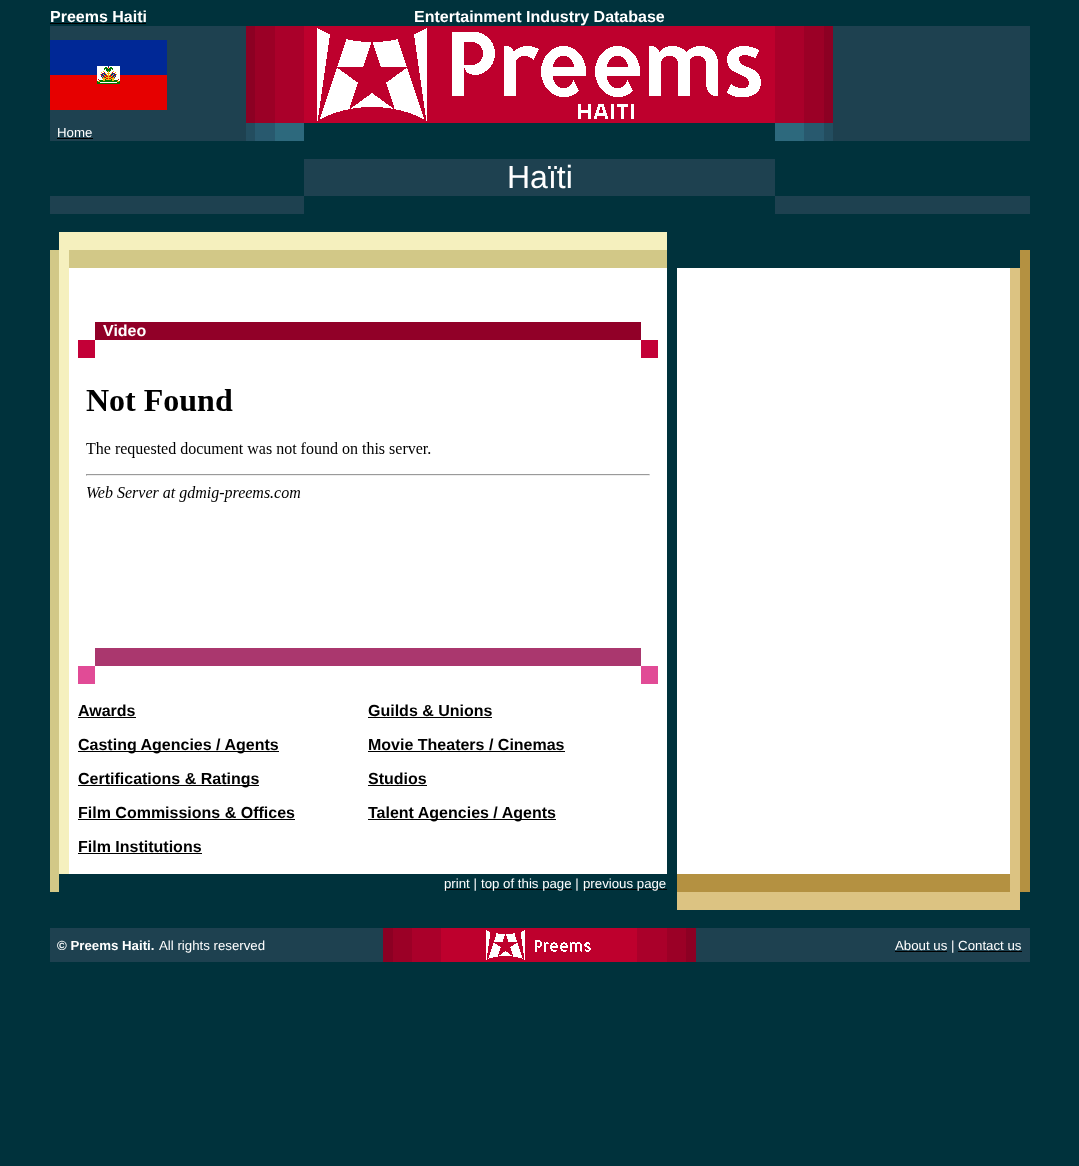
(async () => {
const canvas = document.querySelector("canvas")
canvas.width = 1079
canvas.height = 1166
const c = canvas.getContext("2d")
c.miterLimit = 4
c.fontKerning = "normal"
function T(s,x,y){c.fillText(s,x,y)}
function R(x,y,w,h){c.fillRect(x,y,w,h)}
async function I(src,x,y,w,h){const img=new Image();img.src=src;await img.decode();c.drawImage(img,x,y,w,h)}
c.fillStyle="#00323c"
R(0,0,1079,1166)
c.font="bold 16px Liberation Sans"
c.fillStyle="#fff"
T("Preems Haiti",50,22)
c.fillStyle="#000"
R(50,23,96,1)
c.fillStyle="#fff"
T("Entertainment Industry Database",414,22)
c.fillStyle="#1e4150"
R(50,26,196,115)
await I("1.png",50,40,117,70)
c.fillStyle="#8c0023"
R(246,26,9,97)
c.fillStyle="#9b0026"
R(255,26,20,97)
c.fillStyle="#aa002a"
R(275,26,29,97)
c.fillStyle="#be002d"
R(304,26,471,97)
await I("2.png",317,28,444,93)
c.fillStyle="#aa002a"
R(775,26,29,97)
c.fillStyle="#9b0026"
R(804,26,20,97)
c.fillStyle="#8c0023"
R(824,26,9,97)
c.fillStyle="#1e4150"
R(833,26,197,115)
c.font="13.25px Liberation Sans"
c.fillStyle="#fff"
T("Home",57,137)
c.fillStyle="#000"
R(57,138,36,1)
c.fillStyle="#234d5f"
R(246,123,9,18)
c.fillStyle="#28596e"
R(255,123,20,18)
c.fillStyle="#2d697d"
R(275,123,29,18)
R(775,123,29,18)
c.fillStyle="#28596e"
R(804,123,20,18)
c.fillStyle="#234d5f"
R(824,123,9,18)
c.fillStyle="#1e4150"
R(304,159,471,37)
c.font="32px Liberation Sans"
c.fillStyle="#fff"
T("Haïti",507,188)
c.fillStyle="#1e4150"
R(50,196,254,18)
R(775,196,255,18)
c.fillStyle="#f5f0be"
R(59,232,608,18)
c.fillStyle="#d2c887"
R(50,250,9,642)
c.fillStyle="#f5f0be"
R(59,250,10,624)
c.fillStyle="#d2c887"
R(69,250,598,18)
c.fillStyle="#b49141"
R(1020,250,10,642)
c.fillStyle="#fff"
R(69,268,598,606)
c.fillStyle="#910028"
R(95,322,546,18)
c.font="bold 16px Liberation Sans"
c.fillStyle="#fff"
T("Video",103,336)
c.fillStyle="#c30037"
R(78,340,17,18)
R(641,340,17,18)
await I("3.png",86,389,564,113)
c.fillStyle="#aa376e"
R(95,648,546,18)
c.fillStyle="#e14b96"
R(78,666,17,18)
R(641,666,17,18)
c.fillStyle="#000"
T("Awards",78,716)
R(78,717,58,1)
R(78,751,201,1)
T("Casting Agencies / Agents",78,750)
R(78,785,181,1)
T("Certifications & Ratings",78,784)
T("Film Commissions & Offices",78,818)
R(78,819,217,1)
T("Film Institutions",78,852)
R(78,853,124,1)
T("Guilds & Unions",368,716)
R(368,717,124,1)
T("Movie Theaters / Cinemas",368,750)
R(368,751,197,1)
T("Studios",368,784)
R(368,785,59,1)
R(368,819,188,1)
T("Talent Agencies / Agents",368,818)
c.fillStyle="#fff"
R(677,268,333,606)
c.fillStyle="#dcc382"
R(1010,268,10,624)
c.fillStyle="#000"
R(444,889,26,1)
c.font="13.25px Liberation Sans"
c.fillStyle="#fff"
T("print |",444,888)
c.fillStyle="#000"
R(481,889,91,1)
c.fillStyle="#fff"
T("top of this page |",481,888)
c.fillStyle="#000"
R(583,889,84,1)
c.fillStyle="#fff"
T("previous page",583,888)
c.fillStyle="#b49141"
R(677,874,333,18)
c.fillStyle="#dcc382"
R(677,892,343,18)
c.fillStyle="#1e4150"
R(50,928,333,34)
c.font="bold 13.25px Liberation Sans"
c.fillStyle="#fff"
T("© Preems Haiti.",57,950)
c.font="13.25px Liberation Sans"
T("All rights reserved",159,950)
c.fillStyle="#8c0023"
R(383,928,10,34)
c.fillStyle="#9b0026"
R(393,928,19,34)
c.fillStyle="#aa002a"
R(412,928,29,34)
c.fillStyle="#be002d"
R(441,928,196,34)
await I("4.png",486,930,105,30)
c.fillStyle="#aa002a"
R(637,928,30,34)
c.fillStyle="#9b0026"
R(667,928,19,34)
c.fillStyle="#8c0023"
R(686,928,10,34)
c.fillStyle="#1e4150"
R(696,928,334,34)
c.fillStyle="#000"
R(895,951,52,1)
c.fillStyle="#fff"
T("About us | Contact us",895,950)
c.fillStyle="#000"
R(958,951,64,1)
})()
